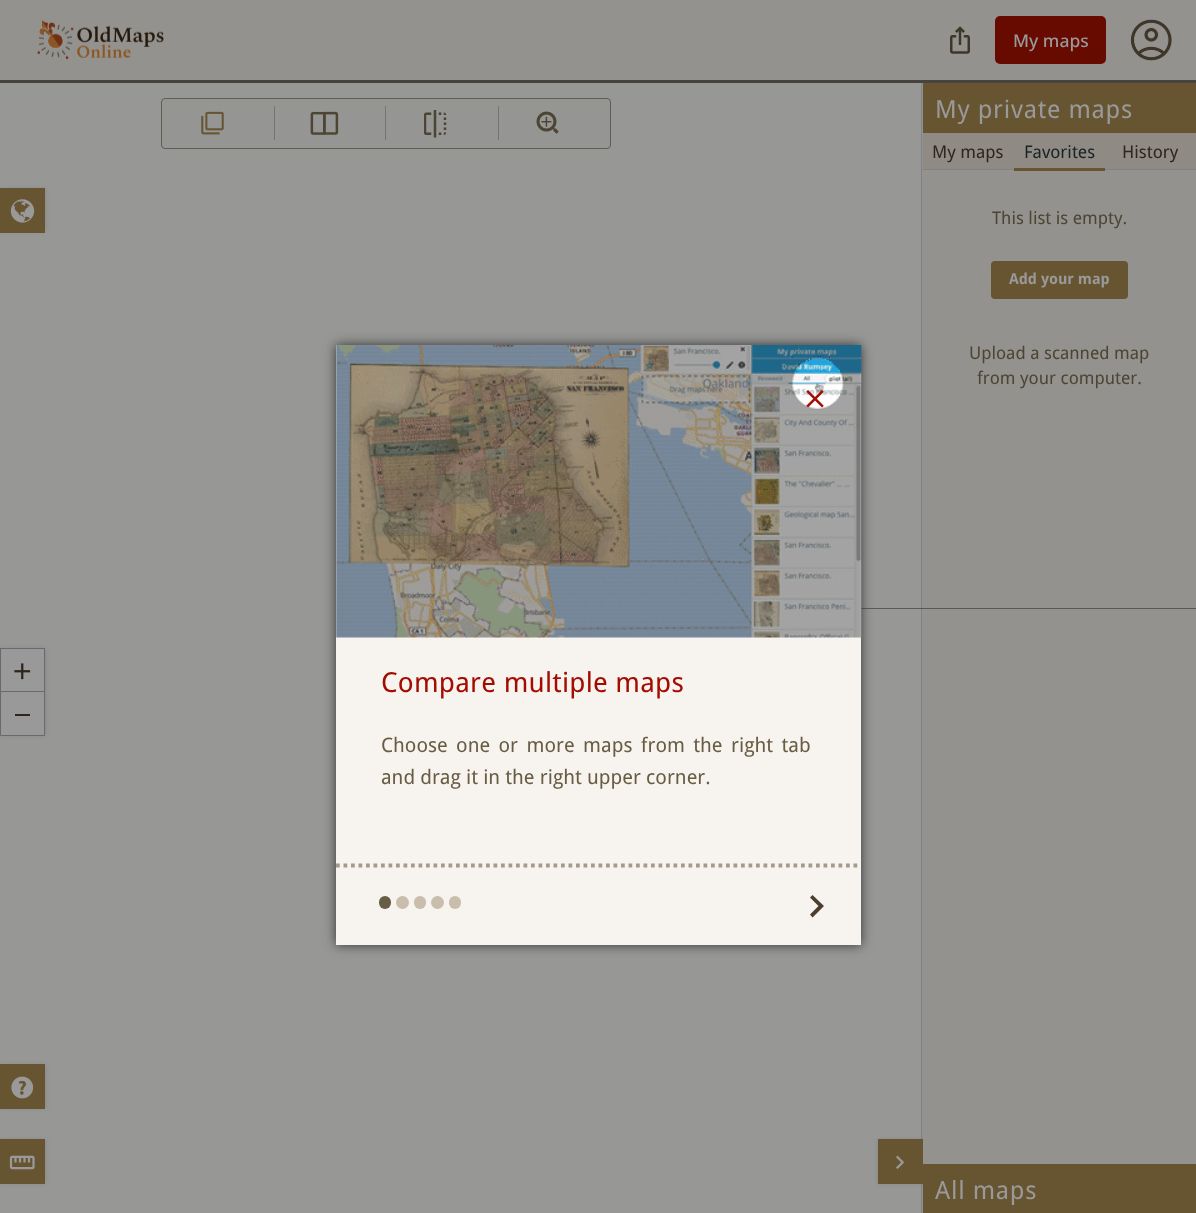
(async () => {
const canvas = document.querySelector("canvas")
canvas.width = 1196
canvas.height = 1213
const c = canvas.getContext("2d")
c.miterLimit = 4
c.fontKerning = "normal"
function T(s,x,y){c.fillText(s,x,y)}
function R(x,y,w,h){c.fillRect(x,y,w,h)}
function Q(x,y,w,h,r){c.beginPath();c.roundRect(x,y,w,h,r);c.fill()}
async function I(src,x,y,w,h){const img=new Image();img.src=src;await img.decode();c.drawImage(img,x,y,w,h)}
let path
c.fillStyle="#979796"
R(0,0,1196,1213)
c.fillStyle="#5b5b5a"
R(861,608,60,1)
c.fillStyle="#94928f"
R(0,0,1196,80)
await I("1.png",37,20,127,40)
await I("2.png",950,26,20,28)
c.fillStyle="#670a00"
Q(995,16,111,48,5)
c.font="500 17.5px Noto Sans"
c.fillStyle="#999"
T("My maps",1013,47)
await I("3.png",1130,19,43,42)
c.fillStyle="#47433e"
R(0,80,1196,3)
c.fillStyle="#333"
c.filter="blur(6px)"
c.beginPath()
c.rect(336,345,525,600)
c.fill()
c.filter="none"
c.fillStyle="#f7f3ee"
R(336,345,525,600)
await I("5.png",336,345,526,293)
await I("4.png",806,390,18,18)
path = new Path2D("M336 865.5h525")
c.strokeStyle="#a39b8b"
c.lineWidth=3.8
c.setLineDash([3.75,3.75])
c.stroke(path)
c.letterSpacing="0.25px"
c.font="27.5px Droid Sans"
c.fillStyle="#a40b01"
T("Compare multiple maps",381,692)
c.letterSpacing="0px"
c.wordSpacing="3.25px"
c.font="20px Droid Sans"
c.fillStyle="#675c44"
T("Choose one or more maps from the right tab",381,752)
c.wordSpacing="0px"
T("and drag it in the right upper corner.",381,784)
Q(379,896,12,13,6)
c.fillStyle="#c9bdac"
c.beginPath()
c.arc(402.5,902.5,6.5,0,7)
c.fill()
Q(414,896,12,13,6)
c.beginPath()
c.arc(437.5,902.5,6.5,0,7)
c.fill()
Q(449,896,12,13,6)
c.fillStyle="#4c3e2e"
path = new Path2D("M810 914.5l8.5-8.5l-8.5-8.5l2.5-2.5l11.5 11l-11.5 11.5z")
c.fill(path)
c.fillStyle="#959593e6"
c.beginPath()
c.roundRect(161.5,98.5,449,50,3.5)
c.fill()
c.strokeStyle="#625d53"
c.lineWidth=1
c.setLineDash([])
c.stroke()
await I("6.png",201,111,23,24)
c.fillStyle="#77736d"
R(274,106,1,34)
await I("7.png",310,111,29,24)
R(385,106,1,34)
await I("8.png",424,110,23,28)
R(498,106,1,34)
await I("9.png",536,111,23,23)
c.fillStyle="#4f51524d"
c.filter="blur(2px)"
c.beginPath()
c.rect(0,189,45,42)
c.fill()
c.filter="none"
c.fillStyle="#675532"
R(0,188,45,45)
await I("10.png",10,199,25,24)
c.fillStyle="#4f51524d"
c.filter="blur(2px)"
c.beginPath()
c.rect(0,649,45,86)
c.fill()
c.filter="none"
c.fillStyle="#999"
R(1,649,43,42)
c.strokeStyle="#666a6e"
c.strokeRect(.5,648.5,44,44)
await I("11.png",14,663,17,17)
c.beginPath()
c.rect(.5,691.5,44,44)
c.fill()
c.stroke()
c.fillStyle="#2e251c"
R(15,714,15,2)
c.fillStyle="#4f51524d"
c.filter="blur(2px)"
c.beginPath()
c.rect(0,1140,45,43)
c.fill()
c.filter="none"
c.fillStyle="#675532"
R(0,1139,45,45)
await I("12.png",9,1155,26,15)
c.fillStyle="#4f51524d"
c.filter="blur(2px)"
c.beginPath()
c.rect(0,1065,45,43)
c.fill()
c.filter="none"
c.fillStyle="#675532"
R(0,1064,45,45)
await I("13.png",11,1076,23,23)
c.fillStyle="#94928f"
R(922,609,1,604)
c.fillStyle="#595856"
R(921,608,275,1)
c.fillStyle="#94928f"
R(922,83,1,525)
c.fillStyle="#7f8288"
R(921,83,1,1130)
c.fillStyle="#4c4e52"
R(921,608,1,1)
c.fillStyle="#4f51524d"
c.filter="blur(2px)"
c.beginPath()
c.rect(878,1140,318,43)
c.fill()
c.filter="none"
c.fillStyle="#94928f"
R(923,609,273,555)
R(923,170,273,438)
c.fillStyle="#675532"
R(923,83,273,50)
c.letterSpacing="0.75px"
c.font="25px Droid Sans"
c.fillStyle="#999"
T("My private maps",935,118)
c.fillStyle="#8f8b84"
R(923,133,273,36)
c.fillStyle="#7f8288"
R(923,169,91,1)
c.letterSpacing="0px"
c.font="17.5px Droid Sans"
c.fillStyle="#2e251c"
T("My maps",932,158)
c.fillStyle="#675532"
R(1014,168,91,3)
c.fillStyle="#1a2326"
T("Favorites",1024,158)
c.fillStyle="#7f8288"
R(1105,169,91,1)
c.fillStyle="#2e251c"
T("History",1122,158)
c.fillStyle="#4d4533"
T("This list is empty.",992,224)
c.fillStyle="#675532"
Q(991,261,137,38,4)
c.font="bold 15px Droid Sans"
c.fillStyle="#999"
T("Add your map",1009,284)
c.font="17.5px Droid Sans"
c.fillStyle="#4d4533"
T("Upload a scanned map",969,359)
T("from your computer.",977,384)
c.fillStyle="#675532"
R(878,1139,45,45)
await I("14.png",896,1155,9,14)
R(923,1164,273,49)
c.letterSpacing="0.75px"
c.font="25px Droid Sans"
c.fillStyle="#999"
T("All maps",935,1199)
})()
